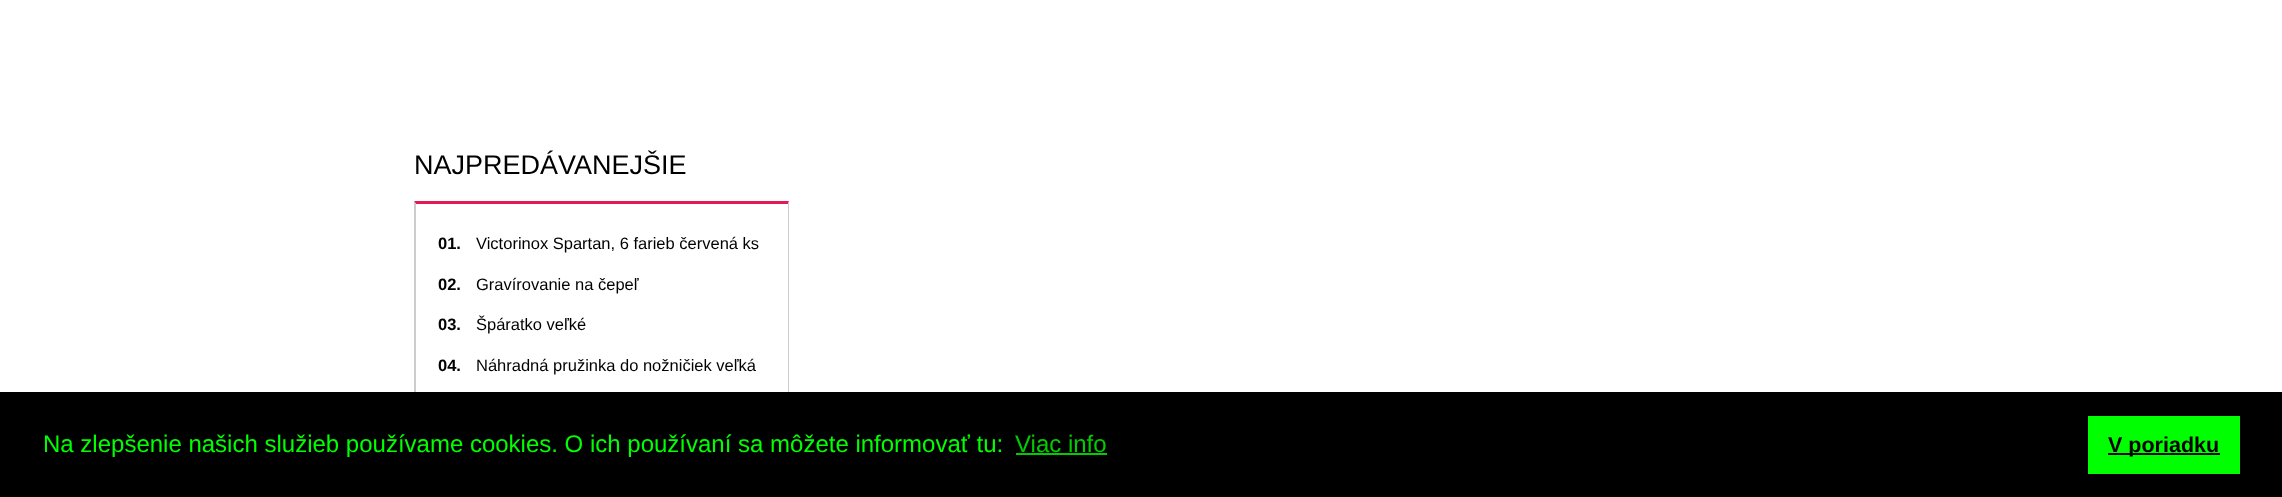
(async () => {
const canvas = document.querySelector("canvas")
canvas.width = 2282
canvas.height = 497
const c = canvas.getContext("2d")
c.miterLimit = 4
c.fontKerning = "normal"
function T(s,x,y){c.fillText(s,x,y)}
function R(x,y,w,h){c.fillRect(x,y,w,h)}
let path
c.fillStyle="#fff"
R(0,0,2282,497)
c.font="27px Liberation Sans"
c.fillStyle="#000"
T("NAJPREDÁVANEJŠIE",414,174)
c.fillStyle="#e21b58"
path = new Path2D("M414 201h375l-1 3h-372z")
c.fill(path)
c.fillStyle="#ccc"
path = new Path2D("M789 201v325l-1-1v-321z")
c.fill(path)
path = new Path2D("M414 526v-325l2 3v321z")
c.fill(path)
c.font="bold 16.5px Liberation Sans"
c.fillStyle="#000"
T("01.",438,249)
c.font="16.5px Liberation Sans"
T("Victorinox Spartan, 6 farieb červená ks",476,249)
c.font="bold 16.5px Liberation Sans"
T("02.",438,290)
c.font="16.5px Liberation Sans"
T("Gravírovanie na čepeľ",476,290)
c.font="bold 16.5px Liberation Sans"
T("03.",438,330)
c.font="16.5px Liberation Sans"
T("Špáratko veľké",476,330)
c.font="bold 16.5px Liberation Sans"
T("04.",438,371)
c.font="16.5px Liberation Sans"
T("Náhradná pružinka do nožničiek veľká",476,371)
R(0,392,2282,105)
c.font="24px Liberation Sans"
c.fillStyle="#0f0"
T("Na zlepšenie našich služieb používame cookies. O ich používaní sa môžete informovať tu:",43,452)
c.fillStyle="#0c0"
T("Viac info",1015,452)
R(1016,453,91,2)
c.fillStyle="#0f0"
R(2088,416,152,58)
c.fillStyle="#000"
R(2108,453,112,2)
c.font="bold 21.5px Liberation Sans"
T("V poriadku",2108,452)
})()
